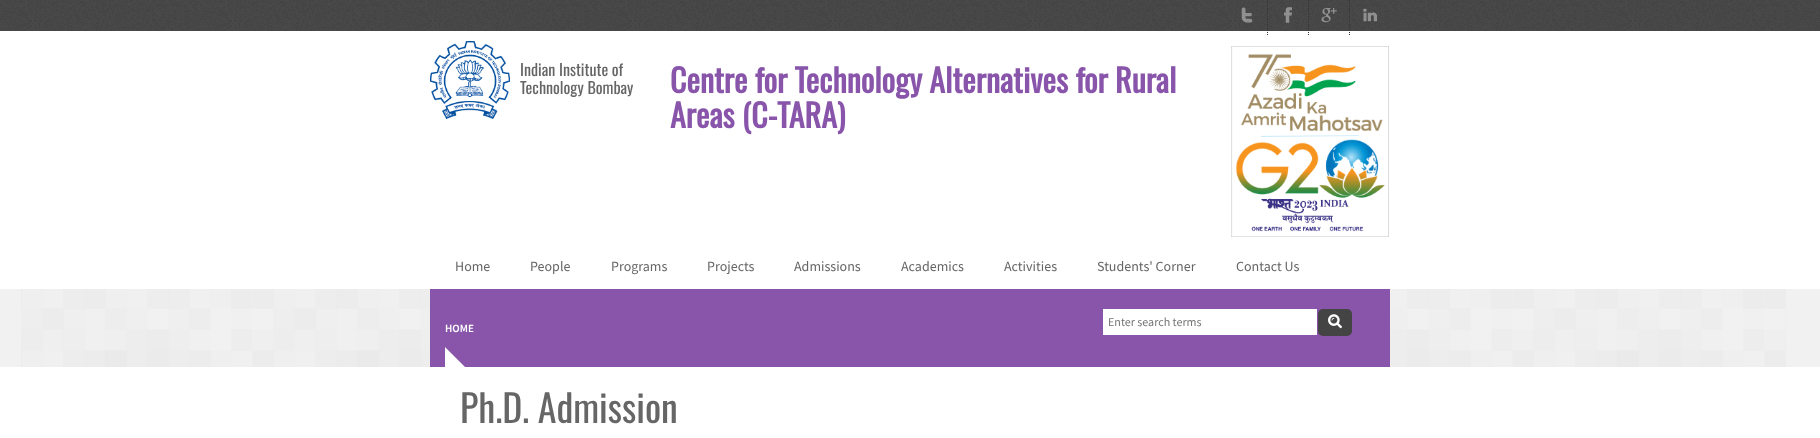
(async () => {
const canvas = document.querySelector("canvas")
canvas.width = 1820
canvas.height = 438
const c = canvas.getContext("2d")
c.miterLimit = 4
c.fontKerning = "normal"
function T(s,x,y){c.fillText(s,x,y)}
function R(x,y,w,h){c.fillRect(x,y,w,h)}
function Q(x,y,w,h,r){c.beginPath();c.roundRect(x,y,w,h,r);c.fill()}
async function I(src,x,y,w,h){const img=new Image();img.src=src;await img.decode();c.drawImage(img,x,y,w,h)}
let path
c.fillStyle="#444"
R(0,0,1820,438)
await I("1.png",0,0,1820,31)
await I("2.png",1241,7,12,16)
c.fillStyle="#fff"
R(0,31,1820,258)
path = new Path2D("M1267.5 0v35m41-35v35")
c.strokeStyle="#333"
c.setLineDash([1,1])
c.stroke(path)
await I("3.png",1284,7,8,16)
await I("4.png",1321,8,16,15)
path = new Path2D("M1349.5 0v35")
c.stroke(path)
await I("5.png",1363,8,14,14)
await I("6.png",430,41,80,78)
c.font="16px Oswald"
c.fillStyle="#666"
T("Indian Institute of",520,76)
T("Technology Bombay",520,94)
c.font="bold 32px Oswald"
c.fillStyle="#85a"
T("Centre for Technology Alternatives for Rural",670,93)
T("Areas (C-TARA)",670,128)
await I("7.png",1231,46,158,191)
c.font="14px Source Sans Pro"
c.fillStyle="#666"
T("Home",455,271)
T("People",530,271)
T("Programs",611,271)
T("Projects",707,271)
T("Admissions",794,271)
T("Academics",901,271)
T("Activities",1004,271)
T("Students' Corner",1097,271)
T("Contact Us",1236,271)
c.fillStyle="#f1f1f1"
R(0,289,1820,78)
await I("8.png",21,289,1765,78)
c.fillStyle="#85a"
R(430,289,960,78)
await I("9.png",445,347,20,20)
c.fillStyle="#fff"
R(1103,309,214,26)
c.font="12px Source Sans Pro"
c.fillStyle="#757575"
T("Enter search terms",1108,326)
c.fillStyle="#444"
Q(1318,309,34,27,5)
await I("10.png",1328,314,14,15)
c.font="600 11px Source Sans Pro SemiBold"
c.fillStyle="#fff"
T("HOME",445,332)
R(0,367,1820,71)
c.font="38px Oswald"
c.fillStyle="#666"
T("Ph.D. Admission",460,423)
})()
